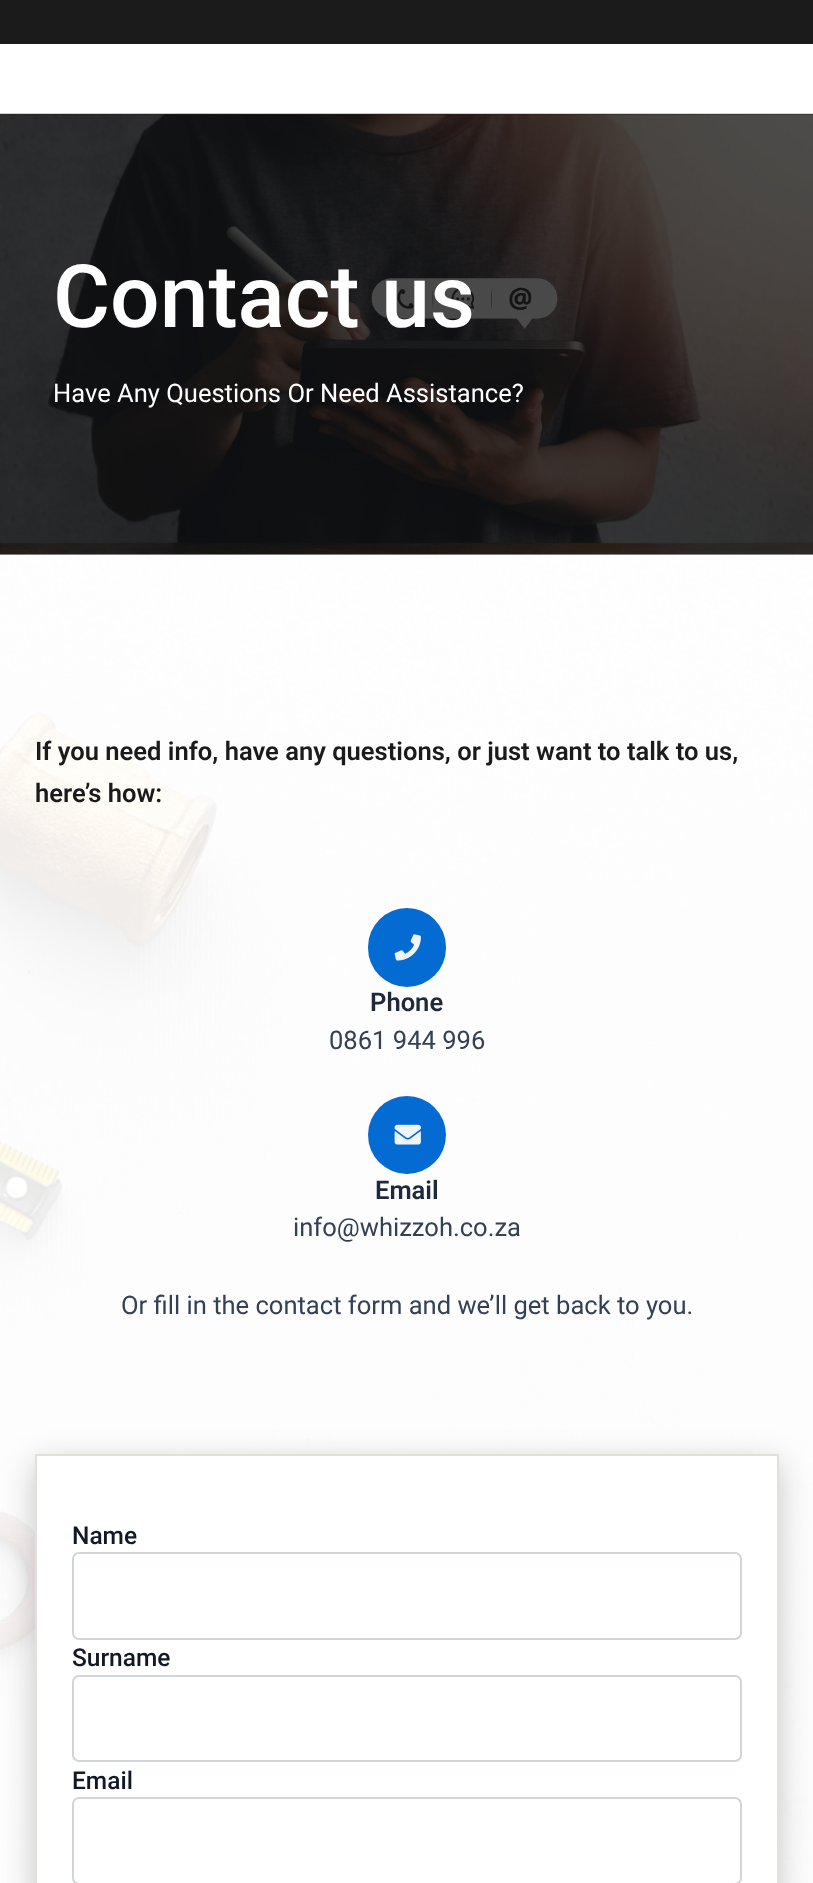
(async () => {
const canvas = document.querySelector("canvas")
canvas.width = 813
canvas.height = 1883
const c = canvas.getContext("2d")
c.miterLimit = 4
c.fontKerning = "normal"
function T(s,x,y){c.fillText(s,x,y)}
function R(x,y,w,h){c.fillRect(x,y,w,h)}
function Q(x,y,w,h,r){c.beginPath();c.roundRect(x,y,w,h,r);c.fill()}
async function I(src,x,y,w,h){const img=new Image();img.src=src;await img.decode();c.drawImage(img,x,y,w,h)}
c.fillStyle="#fff"
R(0,0,813,1883)
c.fillStyle="#1b1b1b"
R(0,0,813,44)
await I("1.png",0,113,813,442)
c.font="500 87.5px Roboto"
c.fillStyle="#fff"
T("Contact us",53,327)
c.font="25.55px Roboto"
T("Have Any Questions Or Need Assistance?",53,402)
await I("2.png",0,554,813,1329)
c.font="600 25.55px Roboto"
c.fillStyle="#1b1b1b"
T("If you need info, have any questions, or just want to talk to us,",35,760)
T("here’s how:",35,802)
c.fillStyle="#046bd2"
Q(368,908,78,79,39)
await I("3.png",394,934,27,27)
c.fillStyle="#1e293b"
T("Phone",370,1011)
c.font="25.55px Roboto"
c.fillStyle="#334155"
T("0861 944 996",329,1049)
c.fillStyle="#046bd2"
c.beginPath()
c.arc(407,1135,39,0,7)
c.fill()
await I("4.png",394,1124,27,21)
c.font="600 25.55px Roboto"
c.fillStyle="#1e293b"
T("Email",375,1199)
c.font="25.55px Roboto"
c.fillStyle="#334155"
T("info@whizzoh.co.za",293,1236)
T("Or fill in the contact form and we’ll get back to you.",121,1314)
c.fillStyle="#00000038"
c.filter="blur(16px)"
c.beginPath()
c.rect(35,1463,744,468)
c.fill()
c.filter="none"
c.fillStyle="#fff"
c.beginPath()
c.rect(36,1455,742,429)
c.fill()
c.strokeStyle="#e0e1db"
c.lineWidth=2
c.stroke()
c.font="500 24.5px Roboto"
c.fillStyle="#111827"
T("Name",72,1544)
c.beginPath()
c.roundRect(73,1553,668,86,6)
c.strokeStyle="#d1d5db"
c.stroke()
T("Surname",72,1666)
c.beginPath()
c.roundRect(73,1676,668,85,6)
c.stroke()
T("Email",72,1789)
c.beginPath()
c.roundRect(73,1798,668,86,6)
c.stroke()
})()
